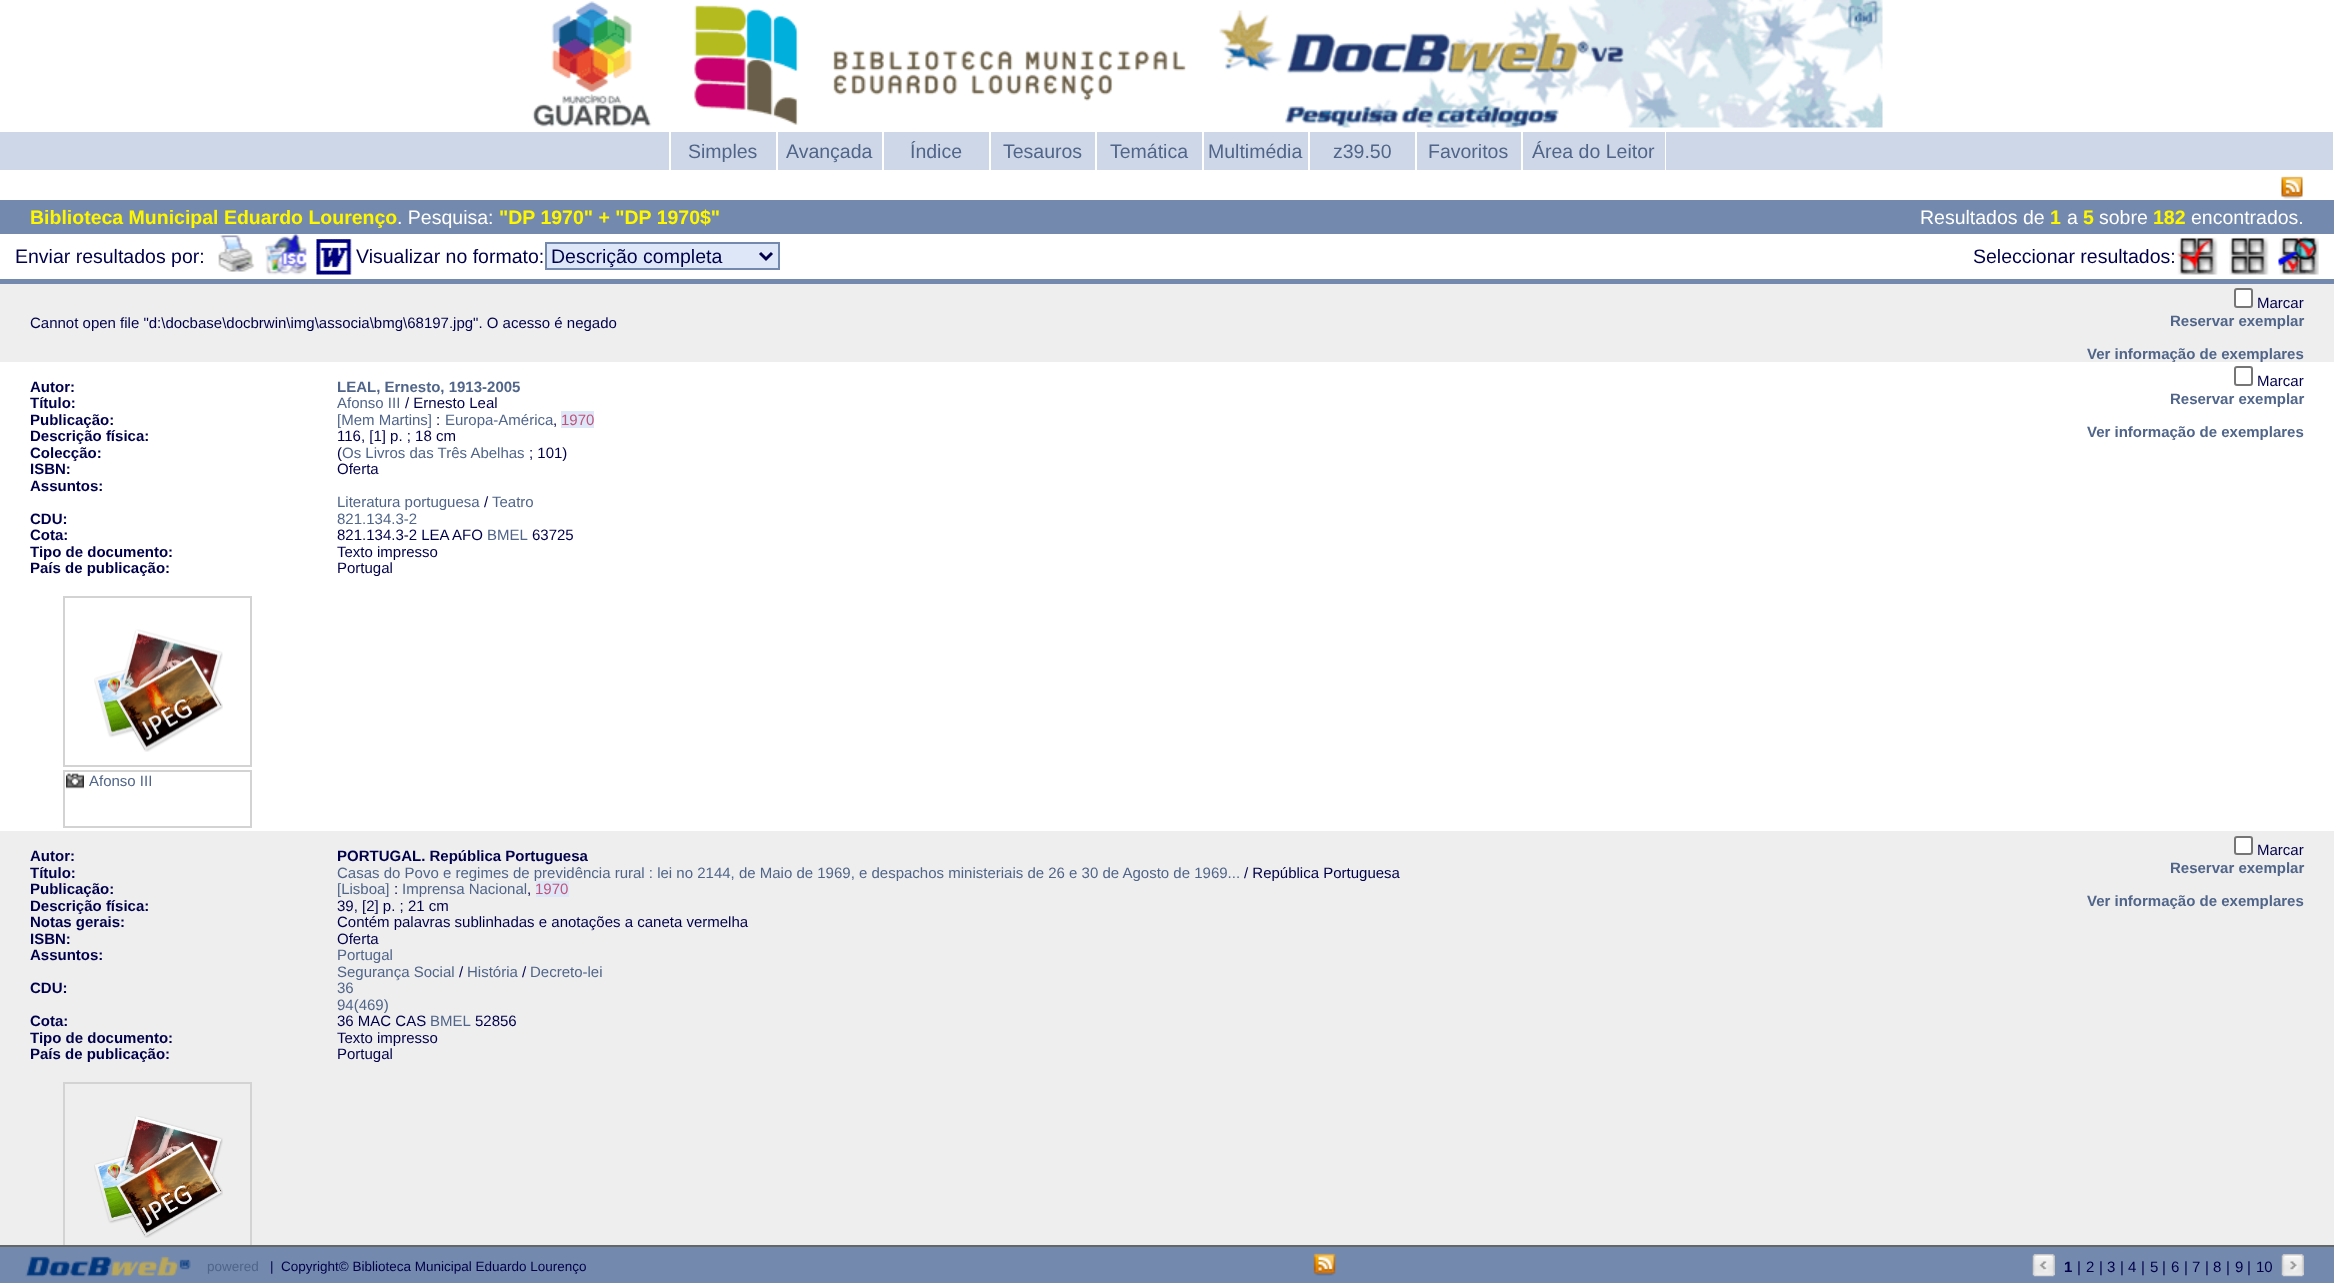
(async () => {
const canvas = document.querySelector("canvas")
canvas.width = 2334
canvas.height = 1283
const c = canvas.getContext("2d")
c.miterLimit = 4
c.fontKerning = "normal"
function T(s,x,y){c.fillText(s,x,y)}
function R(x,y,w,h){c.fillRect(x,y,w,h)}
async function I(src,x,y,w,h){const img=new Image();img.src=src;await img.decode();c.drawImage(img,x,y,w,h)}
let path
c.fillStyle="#fff"
R(0,0,2334,1283)
await I("1.png",532,0,1351,128)
c.fillStyle="#ced7e7"
R(0,132,669,38)
R(671,132,105,38)
c.font="19.5px Liberation Sans"
c.fillStyle="#506589"
T("Simples",688,158)
c.fillStyle="#ced7e7"
R(778,132,104,38)
c.fillStyle="#506589"
T("Avançada",786,158)
c.fillStyle="#ced7e7"
R(884,132,105,38)
c.fillStyle="#506589"
T("Índice",910,158)
c.fillStyle="#ced7e7"
R(991,132,104,38)
c.fillStyle="#506589"
T("Tesauros",1003,158)
c.fillStyle="#ced7e7"
R(1097,132,105,38)
c.fillStyle="#506589"
T("Temática",1110,158)
c.fillStyle="#ced7e7"
R(1204,132,104,38)
c.fillStyle="#506589"
T("Multimédia",1208,158)
c.fillStyle="#ced7e7"
R(1310,132,105,38)
c.fillStyle="#506589"
T("z39.50",1333,158)
c.fillStyle="#ced7e7"
R(1417,132,104,38)
c.fillStyle="#506589"
T("Favoritos",1428,158)
c.fillStyle="#ced7e7"
R(1523,132,142,38)
c.fillStyle="#506589"
T("Área do Leitor",1532,158)
c.fillStyle="#ced7e7"
R(1666,132,667,38)
await I("2.png",2281,176,22,23)
c.fillStyle="#7389ae"
R(0,200,2334,34)
c.font="bold 19.5px Liberation Sans"
c.fillStyle="#fff700"
T("Biblioteca Municipal Eduardo Lourenço",30,224)
c.font="19.5px Liberation Sans"
c.fillStyle="#fff"
T(". Pesquisa:",397,224)
c.font="bold 19.5px Liberation Sans"
c.fillStyle="#fff700"
T("\"DP 1970\" + \"DP 1970$\"",499,224)
c.font="19.5px Liberation Sans"
c.fillStyle="#fff"
T("Resultados de",1920,224)
c.font="bold 19.5px Liberation Sans"
c.fillStyle="#fff700"
T("1",2050,224)
c.font="19.5px Liberation Sans"
c.fillStyle="#fff"
T("a",2067,224)
c.font="bold 19.5px Liberation Sans"
c.fillStyle="#fff700"
T("5",2083,224)
c.font="19.5px Liberation Sans"
c.fillStyle="#fff"
T("sobre",2099,224)
c.font="bold 19.5px Liberation Sans"
c.fillStyle="#fff700"
T("182",2153,224)
c.font="19.5px Liberation Sans"
c.fillStyle="#fff"
T("encontrados.",2191,224)
c.fillStyle="#00004a"
T("Enviar resultados por:",15,263)
await I("3.png",218,235,37,37)
await I("4.png",265,234,42,41)
await I("5.png",316,239,36,36)
T("Visualizar no formato:",356,263)
c.fillStyle="#dee7f7"
c.beginPath()
c.rect(546,243,233,26)
c.fill()
c.strokeStyle="#7389ae"
c.lineWidth=2
c.stroke()
path = new Path2D("M760 253l6 6l6-6")
c.strokeStyle="#00004a"
c.lineWidth=3
c.stroke(path)
c.fillStyle="#00004a"
T("Descrição completa",551,263)
T("Seleccionar resultados:",1973,263)
await I("6.png",2177,237,41,38)
await I("7.png",2229,237,40,38)
await I("8.png",2278,236,41,39)
c.fillStyle="#7389ae"
R(0,279,2334,5)
c.fillStyle="#eee"
R(0,284,2334,78)
c.font="15px Liberation Sans"
c.fillStyle="#00004a"
T("Cannot open file \"d:\\docbase\\docbrwin\\img\\associa\\bmg\\68197.jpg\". O acesso é negado",30,328)
c.fillStyle="#fff"
c.beginPath()
c.roundRect(2235,289,17,18,2)
c.fill()
c.strokeStyle="#767676"
c.lineWidth=2
c.stroke()
c.fillStyle="#00004a"
T("Marcar",2257,308)
c.font="bold 15px Liberation Sans"
c.fillStyle="#506589"
T("Reservar exemplar",2170,326)
T("Ver informação de exemplares",2087,359)
c.fillStyle="#00004a"
T("Autor:",30,392)
c.fillStyle="#506589"
T("LEAL, Ernesto, 1913-2005",337,392)
c.fillStyle="#00004a"
T("Título:",30,408)
c.font="15px Liberation Sans"
c.fillStyle="#506589"
T("Afonso III",337,408)
c.fillStyle="#00004a"
T("/ Ernesto Leal",405,408)
c.font="bold 15px Liberation Sans"
T("Publicação:",30,425)
c.font="15px Liberation Sans"
c.fillStyle="#506589"
T("[Mem Martins]",337,425)
c.fillStyle="#00004a"
T(":",436,425)
c.fillStyle="#506589"
T("Europa-América",445,425)
c.fillStyle="#00004a"
T(",",553,425)
c.fillStyle="#dee7f7"
R(561,411,33,17)
c.fillStyle="#bf557d"
T("1970",561,425)
c.font="bold 15px Liberation Sans"
c.fillStyle="#00004a"
T("Descrição física:",30,441)
c.font="15px Liberation Sans"
T("116, [1] p. ; 18 cm",337,441)
c.font="bold 15px Liberation Sans"
T("Colecção:",30,458)
c.font="15px Liberation Sans"
T("(",337,458)
c.fillStyle="#506589"
T("Os Livros das Três Abelhas",342,458)
c.fillStyle="#00004a"
T("; 101)",529,458)
c.font="bold 15px Liberation Sans"
T("ISBN:",30,474)
c.font="15px Liberation Sans"
T("Oferta",337,474)
c.font="bold 15px Liberation Sans"
T("Assuntos:",30,491)
c.font="15px Liberation Sans"
c.fillStyle="#506589"
T("Literatura portuguesa",337,507)
c.fillStyle="#00004a"
T("/",484,507)
c.fillStyle="#506589"
T("Teatro",492,507)
c.font="bold 15px Liberation Sans"
c.fillStyle="#00004a"
T("CDU:",30,524)
c.font="15px Liberation Sans"
c.fillStyle="#506589"
T("821.134.3-2",337,524)
c.font="bold 15px Liberation Sans"
c.fillStyle="#00004a"
T("Cota:",30,540)
c.font="15px Liberation Sans"
T("821.134.3-2 LEA AFO",337,540)
c.fillStyle="#506589"
T("BMEL",487,540)
c.fillStyle="#00004a"
T("63725",532,540)
c.font="bold 15px Liberation Sans"
T("Tipo de documento:",30,557)
c.font="15px Liberation Sans"
T("Texto impresso",337,557)
c.font="bold 15px Liberation Sans"
T("País de publicação:",30,573)
c.font="15px Liberation Sans"
T("Portugal",337,573)
c.strokeStyle="#d3d3d3"
c.strokeRect(64,597,187,169)
await I("9.png",94,629,129,123)
c.strokeRect(64,771,187,56)
await I("10.png",66,773,18,16)
c.fillStyle="#506589"
T("Afonso III",89,786)
c.beginPath()
c.roundRect(2235,367,17,18,2)
c.strokeStyle="#767676"
c.stroke()
c.fillStyle="#00004a"
T("Marcar",2257,386)
c.font="bold 15px Liberation Sans"
c.fillStyle="#506589"
T("Reservar exemplar",2170,404)
T("Ver informação de exemplares",2087,437)
c.fillStyle="#eee"
R(0,831,2334,414)
c.fillStyle="#00004a"
T("Autor:",30,861)
T("PORTUGAL. República Portuguesa",337,861)
T("Título:",30,878)
c.font="15px Liberation Sans"
c.fillStyle="#506589"
T("Casas do Povo e regimes de previdência rural : lei no 2144, de Maio de 1969, e despachos ministeriais de 26 e 30 de Agosto de 1969...",337,878)
c.fillStyle="#00004a"
T("/ República Portuguesa",1244,878)
c.font="bold 15px Liberation Sans"
T("Publicação:",30,894)
c.font="15px Liberation Sans"
c.fillStyle="#506589"
T("[Lisboa]",337,894)
c.fillStyle="#00004a"
T(":",394,894)
c.fillStyle="#506589"
T("Imprensa Nacional",402,894)
c.fillStyle="#00004a"
T(",",527,894)
c.fillStyle="#dee7f7"
R(536,881,33,16)
c.fillStyle="#bf557d"
T("1970",535,894)
c.font="bold 15px Liberation Sans"
c.fillStyle="#00004a"
T("Descrição física:",30,911)
c.font="15px Liberation Sans"
T("39, [2] p. ; 21 cm",337,911)
c.font="bold 15px Liberation Sans"
T("Notas gerais:",30,927)
c.font="15px Liberation Sans"
T("Contém palavras sublinhadas e anotações a caneta vermelha",337,927)
c.font="bold 15px Liberation Sans"
T("ISBN:",30,944)
c.font="15px Liberation Sans"
T("Oferta",337,944)
c.font="bold 15px Liberation Sans"
T("Assuntos:",30,960)
c.font="15px Liberation Sans"
c.fillStyle="#506589"
T("Portugal",337,960)
T("Segurança Social",337,977)
c.fillStyle="#00004a"
T("/",459,977)
c.fillStyle="#506589"
T("História",467,977)
c.fillStyle="#00004a"
T("/",522,977)
c.fillStyle="#506589"
T("Decreto-lei",530,977)
c.font="bold 15px Liberation Sans"
c.fillStyle="#00004a"
T("CDU:",30,993)
c.font="15px Liberation Sans"
c.fillStyle="#506589"
T("36",337,993)
T("94(469)",337,1010)
c.font="bold 15px Liberation Sans"
c.fillStyle="#00004a"
T("Cota:",30,1026)
c.font="15px Liberation Sans"
T("36 MAC CAS",337,1026)
c.fillStyle="#506589"
T("BMEL",430,1026)
c.fillStyle="#00004a"
T("52856",475,1026)
c.font="bold 15px Liberation Sans"
T("Tipo de documento:",30,1043)
c.font="15px Liberation Sans"
T("Texto impresso",337,1043)
c.font="bold 15px Liberation Sans"
T("País de publicação:",30,1059)
c.font="15px Liberation Sans"
T("Portugal",337,1059)
c.strokeStyle="#d3d3d3"
c.strokeRect(64,1083,187,169)
await I("11.png",94,1116,129,122)
c.fillStyle="#fff"
c.beginPath()
c.roundRect(2235,837,17,17,2)
c.fill()
c.strokeStyle="#767676"
c.stroke()
c.fillStyle="#00004a"
T("Marcar",2257,855)
c.font="bold 15px Liberation Sans"
c.fillStyle="#506589"
T("Reservar exemplar",2170,873)
T("Ver informação de exemplares",2087,906)
c.fillStyle="#7389ae"
R(0,1247,2334,36)
c.fillStyle="#666"
R(0,1245,2334,2)
await I("12.png",25,1256,166,21)
c.font="13.5px Liberation Sans"
c.fillStyle="#506589"
T("powered",207,1271)
c.fillStyle="#00004a"
T("|  Copyright© Biblioteca Municipal Eduardo Lourenço",270,1271)
await I("13.png",1313,1253,23,23)
await I("14.png",2032,1254,23,23)
c.font="bold 15px Liberation Sans"
T("1",2064,1272)
c.font="15px Liberation Sans"
T("|",2077,1272)
T("2",2086,1272)
T("|",2099,1272)
T("3",2107,1272)
T("|",2120,1272)
T("4",2128,1272)
T("|",2141,1272)
T("5",2150,1272)
T("|",2162,1272)
T("6",2171,1272)
T("|",2184,1272)
T("7",2192,1272)
T("|",2205,1272)
T("8",2213,1272)
T("|",2226,1272)
T("9",2235,1272)
T("|",2247,1272)
T("10",2256,1272)
await I("15.png",2281,1254,23,23)
})()
